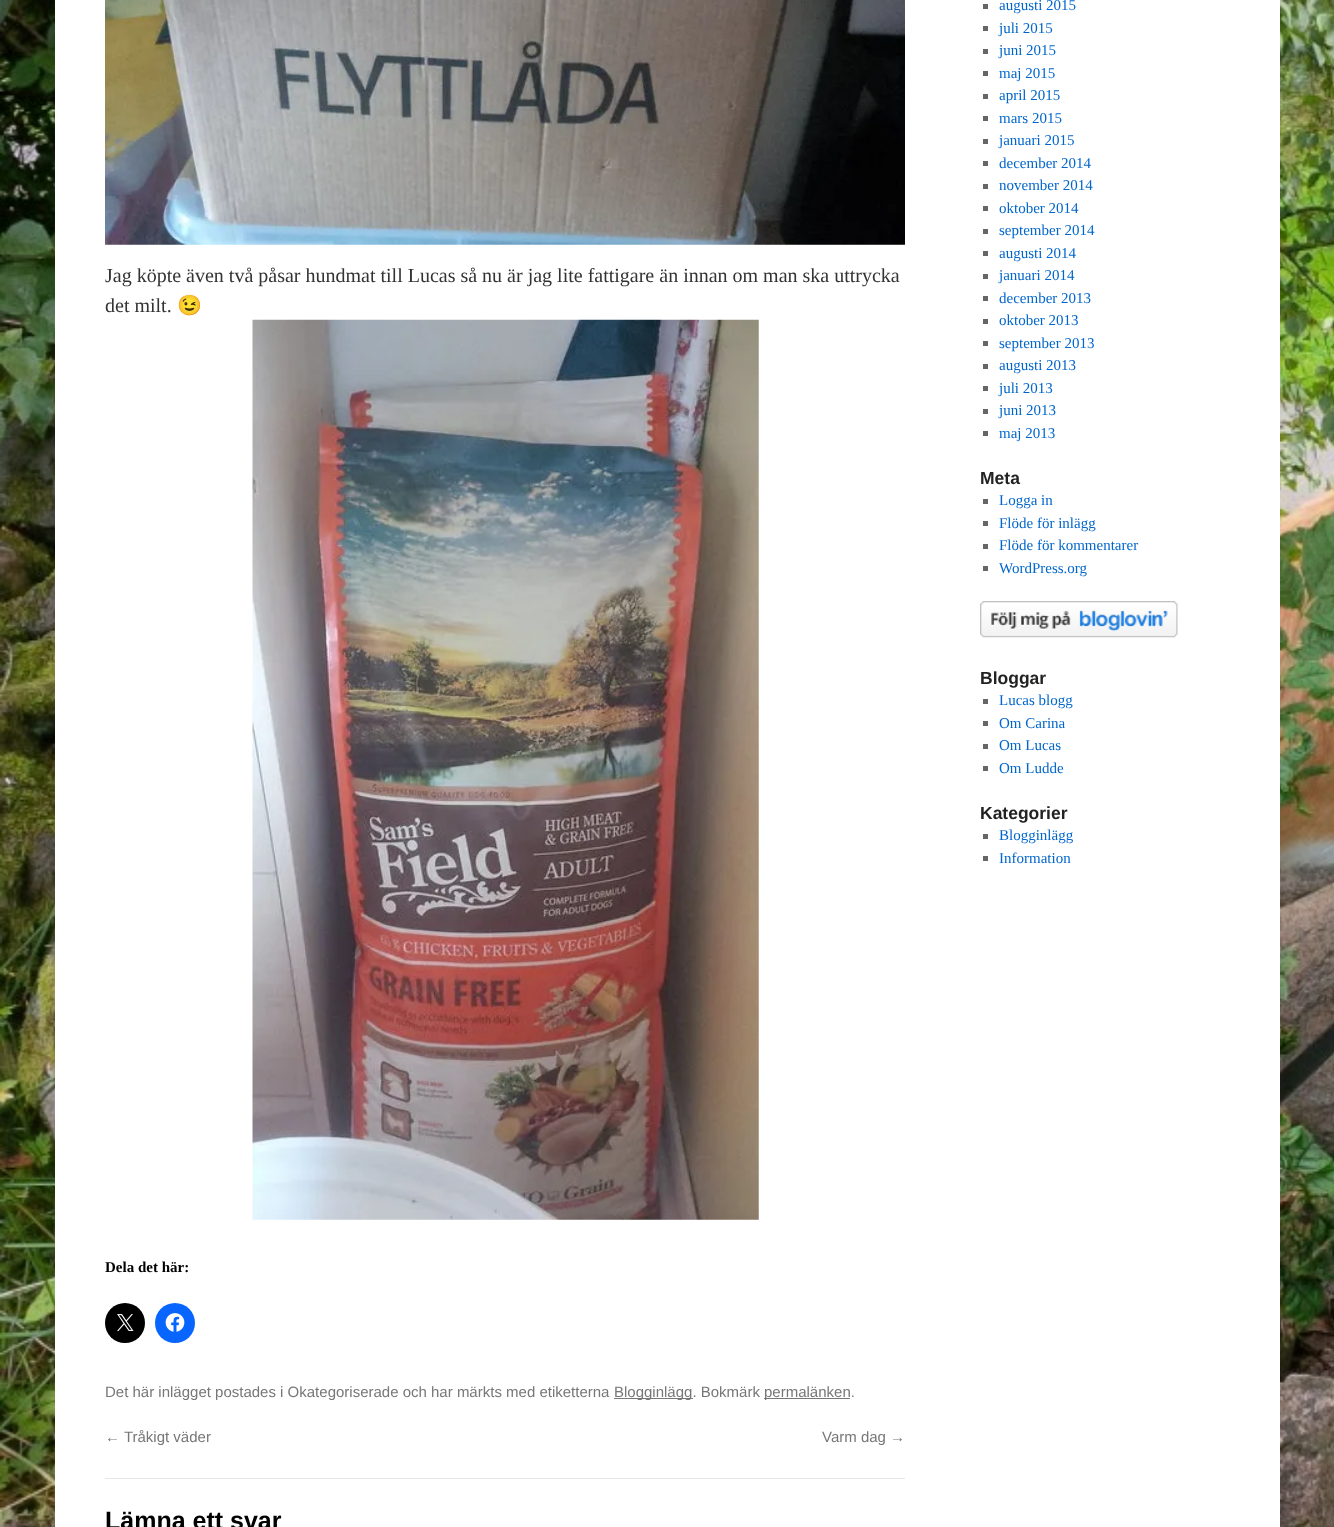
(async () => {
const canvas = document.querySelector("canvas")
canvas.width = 1334
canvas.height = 1527
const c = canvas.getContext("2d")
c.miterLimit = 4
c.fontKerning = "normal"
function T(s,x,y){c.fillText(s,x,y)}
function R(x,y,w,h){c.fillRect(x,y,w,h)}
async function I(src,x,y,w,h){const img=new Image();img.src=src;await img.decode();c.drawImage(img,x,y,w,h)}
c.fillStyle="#fff"
R(0,0,1334,1527)
await I("1.png",0,0,1334,1527)
R(55,0,1225,1527)
await I("2.png",105,0,800,245)
c.font="20px Liberation Serif"
c.fillStyle="#333"
T("Jag köpte även två påsar hundmat till Lucas så nu är jag lite fattigare än innan om man ska uttrycka",105,282)
T("det milt.",105,312)
c.font="20px Noto Color Emoji"
T("😉",177,312)
await I("3.png",252,319,507,901)
c.font="bold 15px Liberation Serif"
c.fillStyle="#000"
T("Dela det här:",105,1272)
c.beginPath()
c.arc(125,1323,20,0,7)
c.fill()
await I("4.png",117,1314,17,17)
c.fillStyle="#0866ff"
c.beginPath()
c.arc(175,1323,20,0,7)
c.fill()
await I("5.png",165,1313,20,19)
c.font="15px Liberation Sans"
c.fillStyle="#777"
T("Det här inlägget postades i Okategoriserade och har märkts med etiketterna",105,1397)
R(614,1398,79,1)
T("Blogginlägg. Bokmärk",614,1397)
R(764,1398,86,1)
T("permalänken.",764,1397)
T("← Tråkigt väder",105,1442)
T("Varm dag →",822,1442)
c.fillStyle="#e7e7e7"
R(105,1478,800,1)
c.font="bold 25px Liberation Sans"
c.fillStyle="#000"
T("Lämna ett svar",105,1529)
c.fillStyle="#666"
R(983,4,5,5)
c.font="15px Liberation Serif"
c.fillStyle="#06c"
T("augusti 2015",999,10)
c.fillStyle="#666"
R(983,26,5,5)
c.fillStyle="#06c"
T("juli 2015",999,33)
c.fillStyle="#666"
R(983,49,5,5)
c.fillStyle="#06c"
T("juni 2015",999,55)
c.fillStyle="#666"
R(983,71,5,5)
c.fillStyle="#06c"
T("maj 2015",999,78)
c.fillStyle="#666"
R(983,94,5,5)
c.fillStyle="#06c"
T("april 2015",999,100)
c.fillStyle="#666"
R(983,116,5,5)
c.fillStyle="#06c"
T("mars 2015",999,123)
c.fillStyle="#666"
R(983,139,5,5)
c.fillStyle="#06c"
T("januari 2015",999,145)
c.fillStyle="#666"
R(983,161,5,5)
c.fillStyle="#06c"
T("december 2014",999,168)
c.fillStyle="#666"
R(983,184,5,5)
c.fillStyle="#06c"
T("november 2014",999,190)
c.fillStyle="#666"
R(983,206,5,5)
c.fillStyle="#06c"
T("oktober 2014",999,213)
c.fillStyle="#666"
R(983,229,5,5)
c.fillStyle="#06c"
T("september 2014",999,235)
c.fillStyle="#666"
R(983,251,5,5)
c.fillStyle="#06c"
T("augusti 2014",999,258)
c.fillStyle="#666"
R(983,274,5,5)
c.fillStyle="#06c"
T("januari 2014",999,280)
c.fillStyle="#666"
R(983,296,5,5)
c.fillStyle="#06c"
T("december 2013",999,303)
c.fillStyle="#666"
R(983,319,5,5)
c.fillStyle="#06c"
T("oktober 2013",999,325)
c.fillStyle="#666"
R(983,341,5,5)
c.fillStyle="#06c"
T("september 2013",999,348)
c.fillStyle="#666"
R(983,364,5,5)
c.fillStyle="#06c"
T("augusti 2013",999,370)
c.fillStyle="#666"
R(983,386,5,5)
c.fillStyle="#06c"
T("juli 2013",999,393)
c.fillStyle="#666"
R(983,409,5,5)
c.fillStyle="#06c"
T("juni 2013",999,415)
c.fillStyle="#666"
R(983,431,5,5)
c.fillStyle="#06c"
T("maj 2013",999,438)
c.font="bold 17.5px Liberation Sans"
c.fillStyle="#222"
T("Meta",980,484)
c.fillStyle="#666"
R(983,499,5,5)
c.font="15px Liberation Serif"
c.fillStyle="#06c"
T("Logga in",999,505)
c.fillStyle="#666"
R(983,521,5,5)
c.fillStyle="#06c"
T("Flöde för inlägg",999,528)
c.fillStyle="#666"
R(983,544,5,5)
c.fillStyle="#06c"
T("Flöde för kommentarer",999,550)
c.fillStyle="#666"
R(983,566,5,5)
c.fillStyle="#06c"
T("WordPress.org",999,573)
await I("6.png",980,601,198,37)
c.font="bold 17.5px Liberation Sans"
c.fillStyle="#222"
T("Bloggar",980,684)
c.fillStyle="#666"
R(983,699,5,5)
c.font="15px Liberation Serif"
c.fillStyle="#06c"
T("Lucas blogg",999,705)
c.fillStyle="#666"
R(983,721,5,5)
c.fillStyle="#06c"
T("Om Carina",999,728)
c.fillStyle="#666"
R(983,744,5,5)
c.fillStyle="#06c"
T("Om Lucas",999,750)
c.fillStyle="#666"
R(983,766,5,5)
c.fillStyle="#06c"
T("Om Ludde",999,773)
c.font="bold 17.5px Liberation Sans"
c.fillStyle="#222"
T("Kategorier",980,819)
c.fillStyle="#666"
R(983,834,5,5)
c.font="15px Liberation Serif"
c.fillStyle="#06c"
T("Blogginlägg",999,840)
c.fillStyle="#666"
R(983,856,5,5)
c.fillStyle="#06c"
T("Information",999,863)
})()
